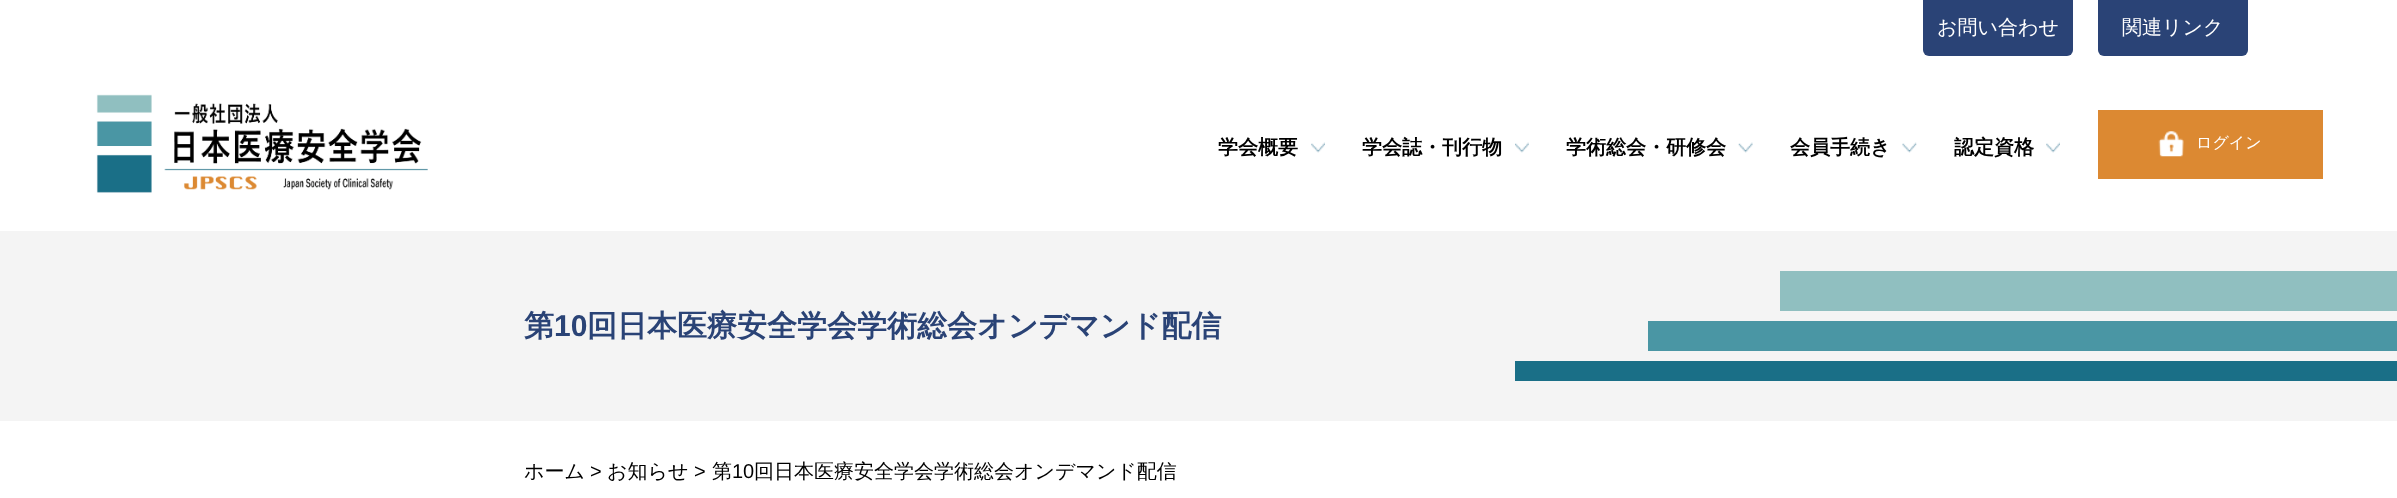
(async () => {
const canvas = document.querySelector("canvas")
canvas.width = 2397
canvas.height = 498
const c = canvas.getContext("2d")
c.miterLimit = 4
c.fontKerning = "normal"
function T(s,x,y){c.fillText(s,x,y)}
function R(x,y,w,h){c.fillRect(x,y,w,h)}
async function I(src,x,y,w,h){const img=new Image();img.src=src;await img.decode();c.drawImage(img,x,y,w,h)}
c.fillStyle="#fff"
R(0,0,2397,498)
c.fillStyle="#2a4376"
c.beginPath()
c.roundRect(1923,0,150,56,[0,0,6,6])
c.fill()
c.font="500 20px WenQuanYi Zen Hei"
c.fillStyle="#fff"
T("お問い合わせ",1937,34)
c.fillStyle="#2a4376"
c.beginPath()
c.roundRect(2098,0,150,56,[0,0,6,6])
c.fill()
c.fillStyle="#fff"
T("関連リンク",2122,34)
await I("1.png",96,94,332,99)
c.font="bold 20px WenQuanYi Zen Hei"
c.fillStyle="#000"
T("学会概要",1218,154)
await I("2.png",1311,142,14,11)
T("学会誌・刊行物",1362,154)
await I("3.png",1515,142,14,11)
T("学術総会・研修会",1566,154)
await I("4.png",1738,142,15,11)
T("会員手続き",1790,154)
await I("5.png",1902,142,15,11)
T("認定資格",1954,154)
await I("2.png",2046,142,14,11)
c.fillStyle="#dc8932"
R(2098,110,225,69)
await I("6.png",2158,131,26,26)
c.font="500 16px WenQuanYi Zen Hei"
c.fillStyle="#fff"
T("ログイン",2196,148)
c.fillStyle="#f4f4f4"
R(0,231,2397,190)
c.fillStyle="#90bfc0"
R(1780,271,617,40)
c.font="bold 30px WenQuanYi Zen Hei"
c.fillStyle="#2a4376"
T("第",524,336)
c.font="bold 30px Liberation Sans"
T("10",554,336)
c.font="bold 30px WenQuanYi Zen Hei"
T("回日本医療安全学会学術総会オンデマンド配信",587,336)
c.fillStyle="#4a96a4"
R(1648,321,749,30)
c.fillStyle="#1a6f87"
R(1515,361,882,20)
c.font="500 20px WenQuanYi Zen Hei"
c.fillStyle="#000"
T("ホーム",524,478)
c.font="20px Liberation Sans"
T(">",590,478)
c.font="500 20px WenQuanYi Zen Hei"
T("お知らせ",607,478)
c.font="20px Liberation Sans"
T(">",694,478)
c.font="500 20px WenQuanYi Zen Hei"
T("第",712,478)
c.font="20px Liberation Sans"
T("10",732,478)
c.font="500 20px WenQuanYi Zen Hei"
T("回日本医療安全学会学術総会オンデマンド配信",754,478)
})()
